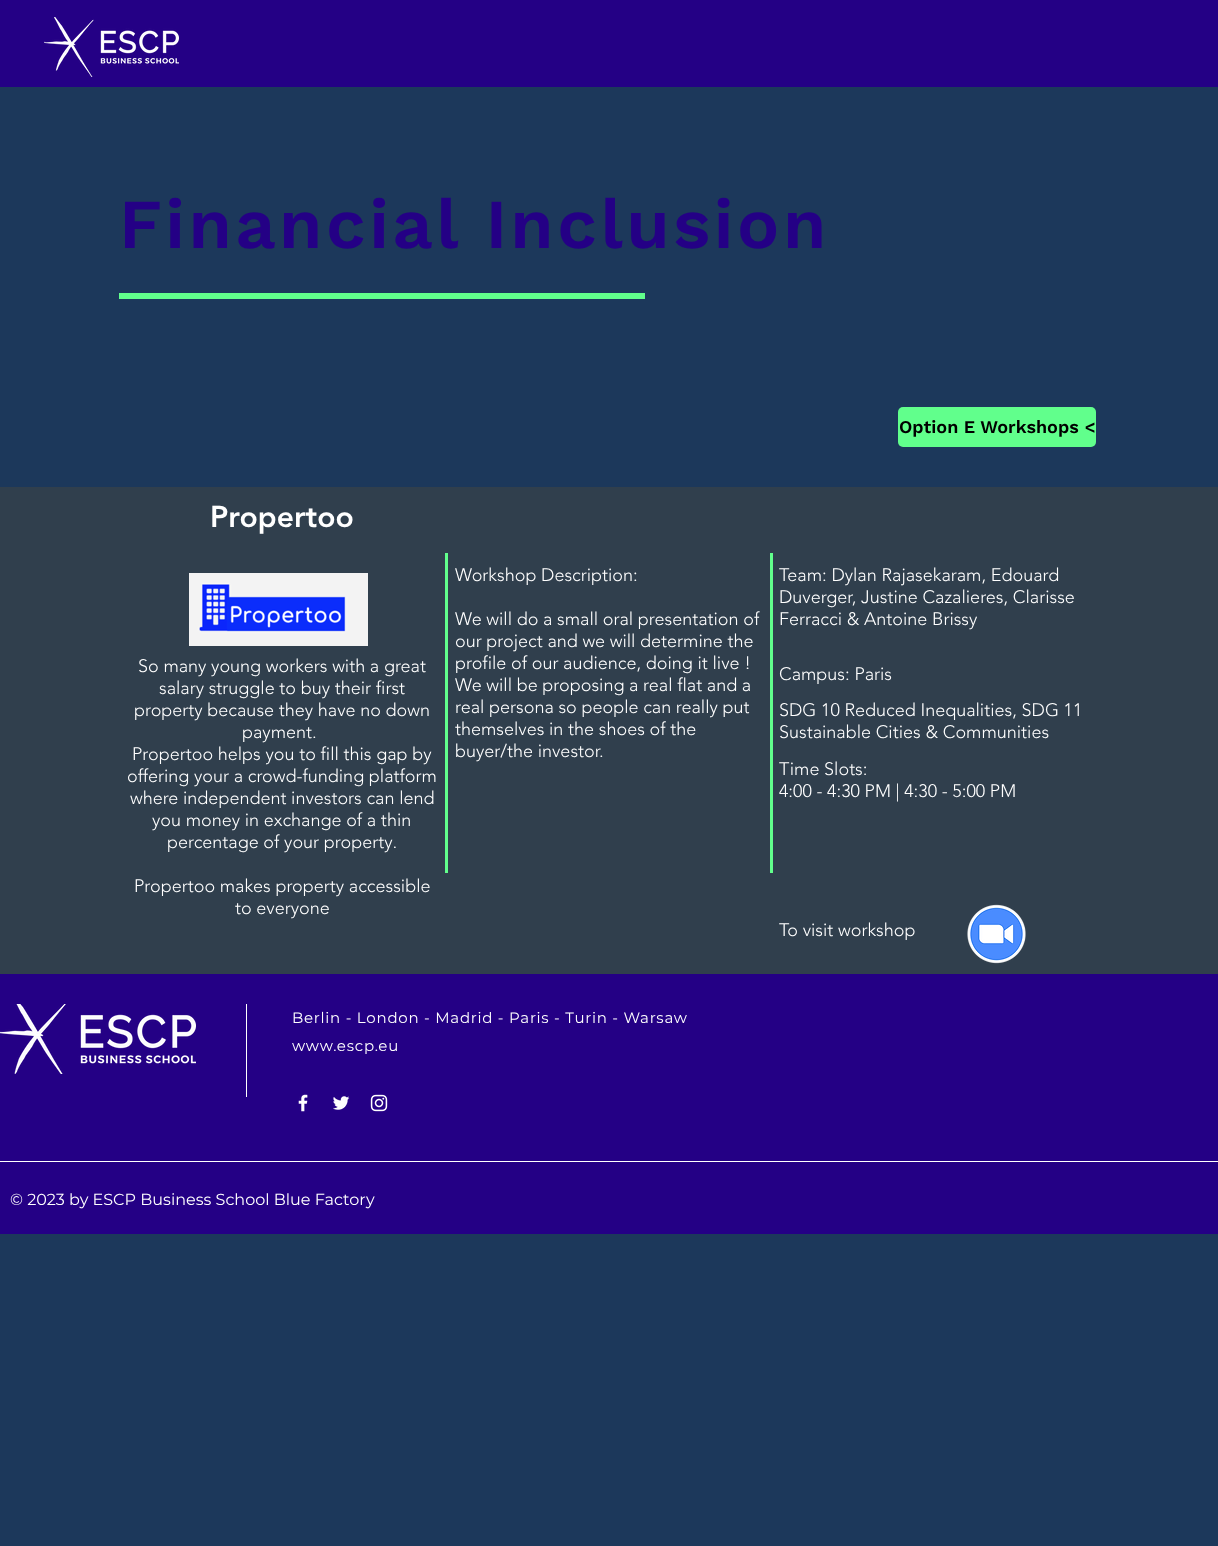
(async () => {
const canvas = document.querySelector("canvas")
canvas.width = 1218
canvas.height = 1546
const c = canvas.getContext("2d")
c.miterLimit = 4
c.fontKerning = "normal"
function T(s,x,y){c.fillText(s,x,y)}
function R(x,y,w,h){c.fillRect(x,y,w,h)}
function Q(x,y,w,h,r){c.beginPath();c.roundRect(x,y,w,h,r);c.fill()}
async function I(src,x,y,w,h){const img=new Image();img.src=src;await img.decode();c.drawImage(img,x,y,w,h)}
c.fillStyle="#1c385b"
R(0,0,1218,1546)
c.fillStyle="#240085"
R(0,0,1218,87)
await I("1.png",44,17,135,60)
c.letterSpacing="3.5px"
c.font="600 70px Work Sans"
T("Financial Inclusion",119,248)
c.fillStyle="#61ff8c"
R(119,293,526,6)
Q(898,407,198,40,5)
c.letterSpacing="0px"
c.font="600 18px Work Sans"
c.fillStyle="#000"
T("Option E Workshops <",899,433)
c.fillStyle="#303f4d"
R(0,487,1218,487)
c.font="900 30px 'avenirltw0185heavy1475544'"
c.fillStyle="#fff"
T("Propertoo",210,527)
await I("2.png",189,573,179,73)
c.fillStyle="#61ff8c"
R(445,553,3,320)
c.font="300 18px 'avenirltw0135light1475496'"
c.fillStyle="#fff"
T("Workshop Description:",455,581)
T("We will do a small oral presentation of",455,625)
T("our project and we will determine the",455,647)
T("profile of our audience, doing it live !",455,669)
T("We will be proposing a real flat and a",455,691)
T("real persona so people can really put",455,713)
T("themselves in the shoes of the",455,735)
T("buyer/the investor.",455,757)
c.fillStyle="#61ff8c"
R(770,553,3,320)
c.fillStyle="#fff"
T("Team: Dylan Rajasekaram, Edouard",779,581)
T("Duverger, Justine Cazalieres, Clarisse",779,603)
T("Ferracci & Antoine Brissy",779,625)
T("So many young workers with a great",138,672)
T("salary struggle to buy their first",159,694)
T("property because they have no down",134,716)
T("payment.",242,738)
T("Propertoo helps you to fill this gap by",132,760)
T("offering your a crowd-funding platform",127,782)
T("where independent investors can lend",130,804)
T("you money in exchange of a thin",152,826)
T("percentage of your property.",167,848)
T("Propertoo makes property accessible",134,892)
T("to everyone",235,914)
T("Campus: Paris",779,680)
T("SDG 10 Reduced Inequalities, SDG 11",779,716)
T("Sustainable Cities & Communities",779,738)
T("Time Slots:",779,775)
T("4:00 - 4:30 PM | 4:30 - 5:00 PM",779,797)
T("To visit workshop",779,936)
await I("3.png",967,904,59,60)
c.fillStyle="#240085"
R(0,974,1218,260)
await I("4.png",0,1004,196,70)
c.fillStyle="#fff"
R(246,1004,1,93)
c.letterSpacing="0.75px"
c.font="15px Montserrat"
T("Berlin - London - Madrid - Paris - Turin - Warsaw",292,1023)
T("www.escp.eu",292,1051)
await I("5.png",298,1094,10,18)
await I("6.png",333,1096,17,14)
await I("7.png",370,1094,18,18)
R(0,1161,1218,1)
c.letterSpacing="0px"
c.font="16px Montserrat"
T("© 2023 by ESCP Business School Blue Factory",10,1205)
})()
